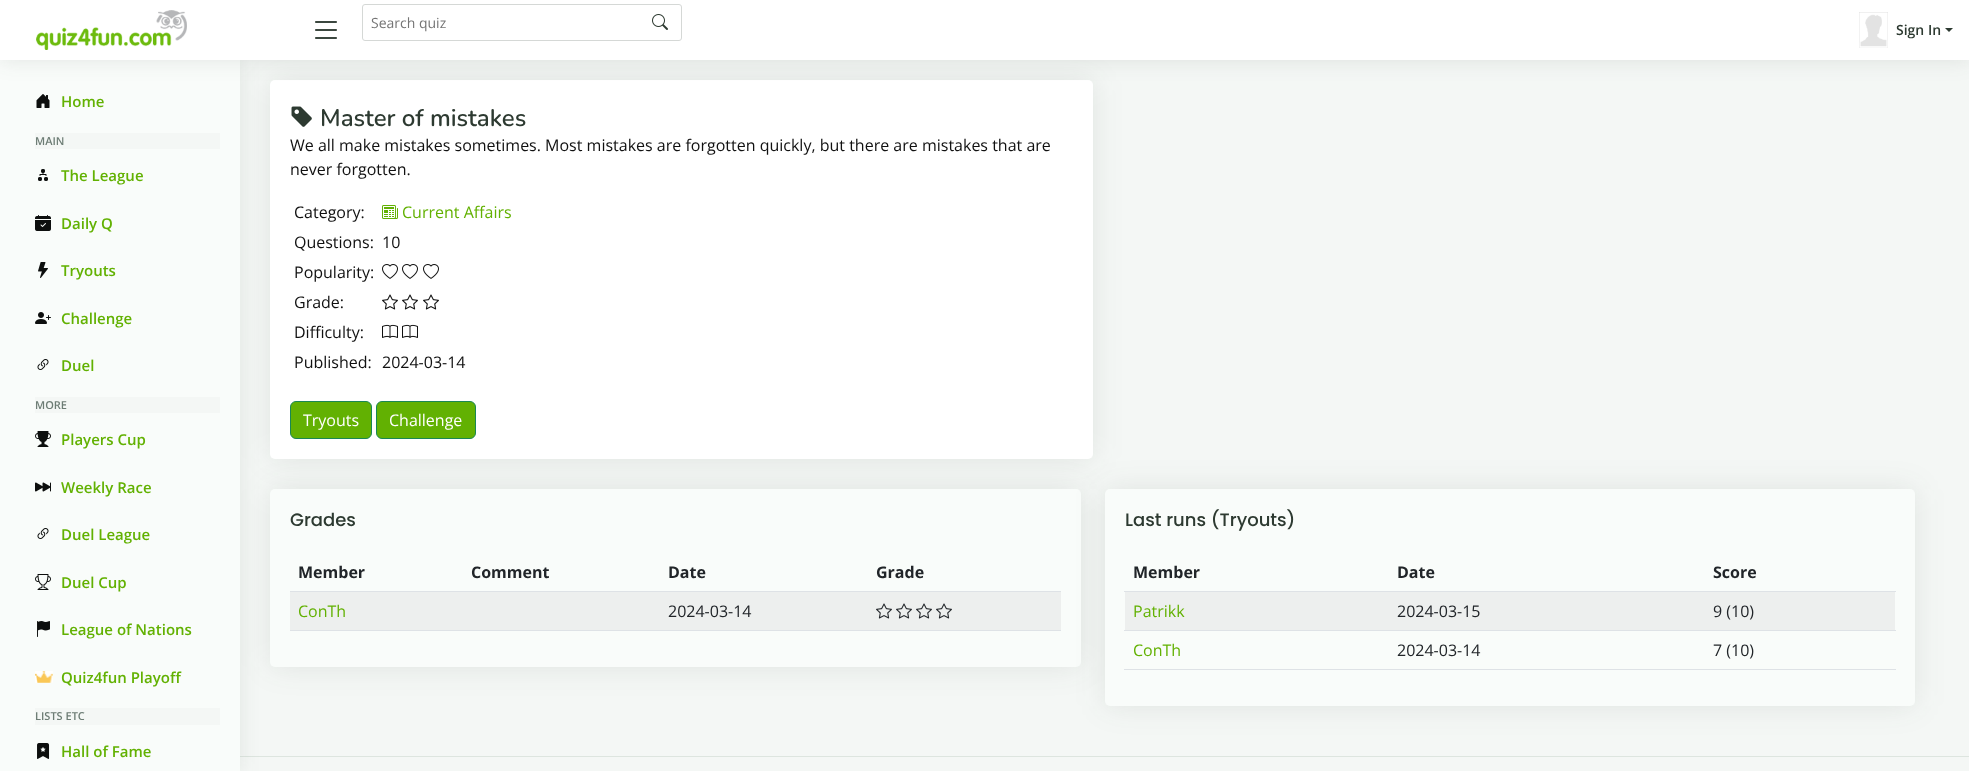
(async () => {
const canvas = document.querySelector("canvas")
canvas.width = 1969
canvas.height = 771
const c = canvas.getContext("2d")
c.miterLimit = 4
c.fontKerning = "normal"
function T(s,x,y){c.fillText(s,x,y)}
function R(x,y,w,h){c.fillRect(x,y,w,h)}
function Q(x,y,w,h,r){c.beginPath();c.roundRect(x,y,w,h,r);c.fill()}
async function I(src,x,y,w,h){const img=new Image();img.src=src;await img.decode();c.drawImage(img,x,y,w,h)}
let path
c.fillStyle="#f4f7f5"
R(0,0,1969,771)
c.fillStyle="#2d3a311a"
c.filter="blur(15px)"
c.beginPath()
c.roundRect(270,80,823,379,5)
c.fill()
c.filter="none"
c.fillStyle="#fff"
Q(270,80,823,379,5)
c.fillStyle="#2d3a311a"
c.filter="blur(15px)"
c.beginPath()
c.roundRect(270,489,811,178,5)
c.fill()
c.filter="none"
c.fillStyle="#f9fcfa"
Q(270,489,811,178,5)
c.fillStyle="#dde5df"
R(240,756,1729,1)
c.fillStyle="#2d3a311a"
c.filter="blur(10px)"
c.beginPath()
c.rect(0,60,240,711)
c.fill()
c.filter="none"
c.fillStyle="#f9fcfa"
R(0,60,240,711)
c.fillStyle="#2d3a311a"
c.filter="blur(10px)"
c.beginPath()
c.rect(0,2,1969,60)
c.fill()
c.filter="none"
c.fillStyle="#fff"
R(0,0,1969,60)
await I("1.png",36,10,151,40)
await I("2.png",315,21,22,18)
c.beginPath()
c.roundRect(362.5,4.5,319,36,2.5)
c.strokeStyle="#d5d8d6"
c.stroke()
c.font="14px Open Sans"
c.fillStyle="#757575"
T("Search quiz",371,28)
await I("3.png",652,14,16,16)
await I("4.png",1859,12,29,36)
c.font="600 14px Open Sans"
c.fillStyle="#2d3a31"
T("Sign In",1896,35)
path = new Path2D("M1945 28h8l-4 4z")
c.fill(path)
await I("5.png",36,94,14,14)
c.font="600 15px Open Sans"
c.fillStyle="#62b102"
T("Home",61,107)
c.fillStyle="#f4f7f5"
R(35,133,185,16)
c.font="600 11px Open Sans"
c.fillStyle="#6c7c74"
T("MAIN",35,145)
await I("6.png",38,169,10,12)
c.font="600 15px Open Sans"
c.fillStyle="#62b102"
T("The League",61,181)
await I("7.png",35,215,16,16)
T("Daily Q",61,229)
await I("8.png",38,262,10,16)
T("Tryouts",61,276)
await I("9.png",35,312,16,12)
T("Challenge",61,324)
await I("10.png",37,359,12,11)
T("Duel",61,371)
c.fillStyle="#f4f7f5"
R(35,397,185,16)
c.font="600 11px Open Sans"
c.fillStyle="#6c7c74"
T("MORE",35,409)
await I("11.png",35,431,16,16)
c.font="600 15px Open Sans"
c.fillStyle="#62b102"
T("Players Cup",61,445)
await I("12.png",35,482,16,10)
T("Weekly Race",61,493)
await I("10.png",37,528,12,11)
T("Duel League",61,540)
await I("13.png",35,574,16,16)
T("Duel Cup",61,588)
await I("14.png",37,621,13,16)
T("League of Nations",61,635)
await I("15.png",35,671,18,12)
T("Quiz4fun Playoff",61,683)
c.fillStyle="#f4f7f5"
R(35,708,185,17)
c.font="600 11px Open Sans"
c.fillStyle="#6c7c74"
T("LISTS ETC",35,720)
await I("16.png",37,743,13,16)
c.font="600 15px Open Sans"
c.fillStyle="#62b102"
T("Hall of Fame",61,757)
await I("17.png",291,106,21,21)
c.font="600 24px Nunito"
c.fillStyle="#2d3a31"
T("Master of mistakes",320,126)
c.font="16px Open Sans"
c.fillStyle="#111"
T("We all make mistakes sometimes. Most mistakes are forgotten quickly, but there are mistakes that are",290,151)
T("never forgotten.",290,175)
T("Category:",294,218)
await I("18.png",382,205,16,14)
c.fillStyle="#62b102"
T("Current Affairs",402,218)
c.fillStyle="#111"
T("Questions:",294,248)
T("10",382,248)
T("Popularity:",294,278)
await I("19.png",382,264,16,15)
await I("19.png",402,264,16,15)
await I("19.png",423,264,16,15)
T("Grade:",294,308)
await I("20.png",382,294,16,16)
await I("20.png",402,294,16,16)
await I("20.png",423,294,16,16)
T("Difficulty:",294,338)
await I("21.png",382,324,16,14)
await I("21.png",402,324,16,14)
T("Published:",294,368)
T("2024-03-14",382,368)
c.fillStyle="#62b102"
c.beginPath()
c.roundRect(290.5,401.5,81,37,5.5)
c.fill()
c.strokeStyle="#198754"
c.stroke()
c.fillStyle="#fff"
T("Tryouts",303,426)
c.fillStyle="#62b102"
c.beginPath()
c.roundRect(376.5,401.5,99,37,5.5)
c.fill()
c.stroke()
c.fillStyle="#fff"
T("Challenge",389,426)
c.font="500 18px Poppins"
c.fillStyle="#2d3a31"
T("Grades",290,526)
c.font="bold 16px Open Sans"
c.fillStyle="#212529"
T("Member",298,578)
T("Comment",471,578)
T("Date",668,578)
c.fillStyle="#dee2e6"
R(290,591,771,1)
c.fillStyle="#212529"
T("Grade",876,578)
c.fillStyle="#dee2e6"
R(290,630,771,1)
c.fillStyle="#edefee"
R(290,592,771,38)
await I("22.png",876,603,16,16)
await I("22.png",896,603,16,16)
await I("22.png",916,603,16,16)
await I("22.png",936,603,16,16)
c.font="16px Open Sans"
c.fillStyle="#62b102"
T("ConTh",298,617)
c.fillStyle="#212529"
T("2024-03-14",668,617)
c.fillStyle="#2d3a311a"
c.filter="blur(15px)"
c.beginPath()
c.roundRect(1105,489,810,217,5)
c.fill()
c.filter="none"
c.fillStyle="#f9fcfa"
Q(1105,489,810,217,5)
c.font="500 18px Poppins"
c.fillStyle="#2d3a31"
T("Last runs (Tryouts)",1125,526)
c.font="bold 16px Open Sans"
c.fillStyle="#212529"
T("Member",1133,578)
T("Date",1397,578)
c.fillStyle="#dee2e6"
R(1124,591,772,1)
c.fillStyle="#212529"
T("Score",1713,578)
c.fillStyle="#edefee"
R(1125,592,770,38)
c.font="16px Open Sans"
c.fillStyle="#62b102"
T("Patrikk",1133,617)
c.fillStyle="#212529"
T("2024-03-15",1397,617)
c.fillStyle="#dee2e6"
R(1124,630,772,1)
c.fillStyle="#212529"
T("9 (10)",1713,617)
c.fillStyle="#62b102"
T("ConTh",1133,656)
c.fillStyle="#212529"
T("2024-03-14",1397,656)
c.fillStyle="#dee2e6"
R(1124,669,772,1)
c.fillStyle="#212529"
T("7 (10)",1713,656)
})()
